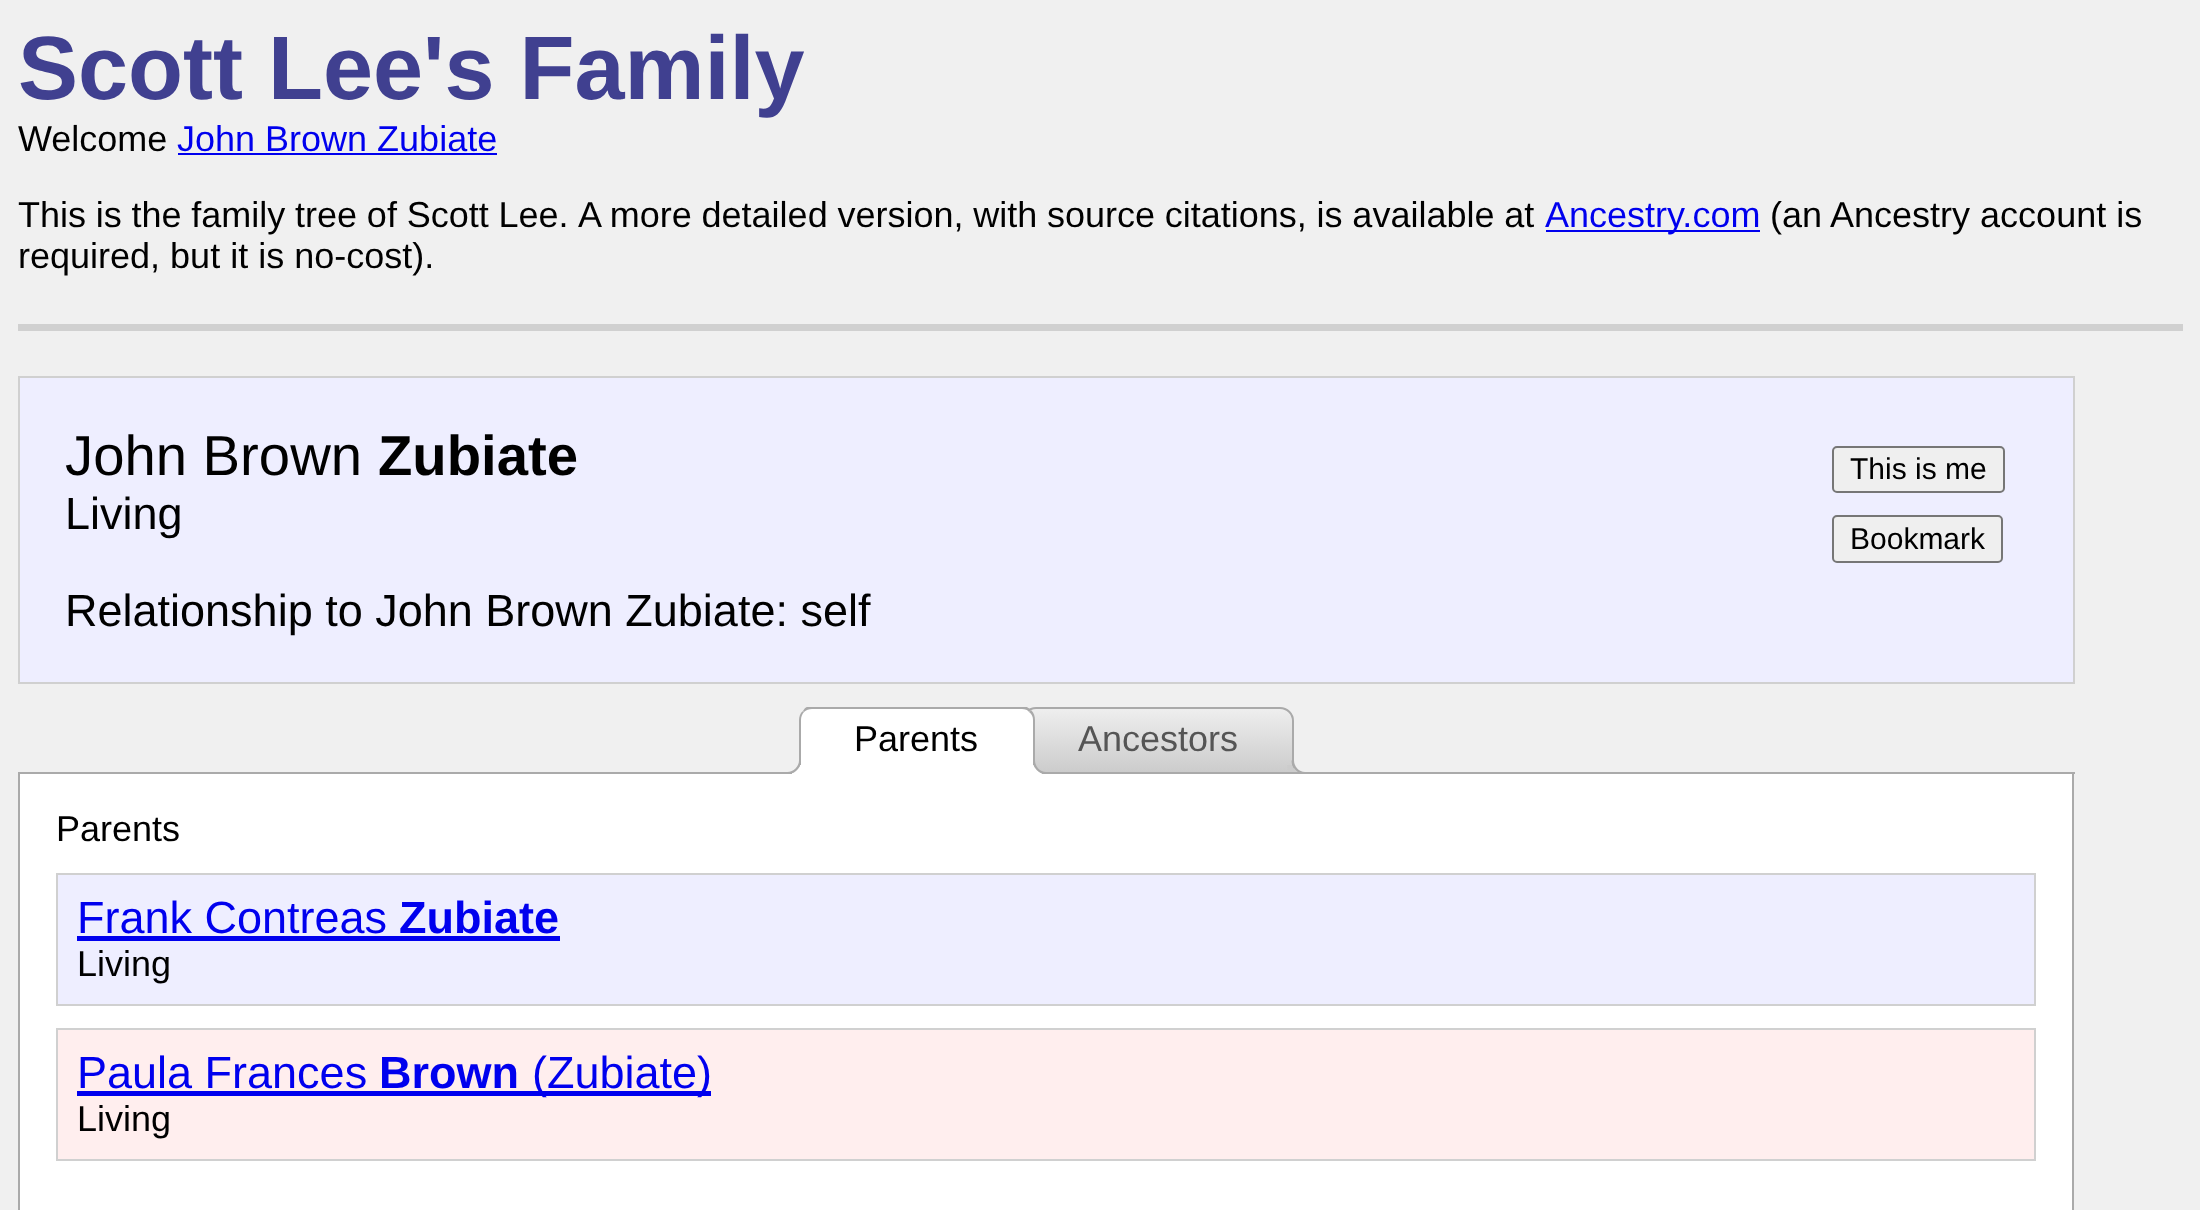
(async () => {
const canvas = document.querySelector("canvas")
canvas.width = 2200
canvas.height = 1210
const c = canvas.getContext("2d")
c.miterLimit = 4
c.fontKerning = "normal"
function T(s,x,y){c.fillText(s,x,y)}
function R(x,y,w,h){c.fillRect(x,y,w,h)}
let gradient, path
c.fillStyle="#f0f0f0"
R(0,0,2200,1210)
c.fillStyle="#d0d0d0"
R(18,324,2165,7)
c.font="bold 90px Liberation Sans"
c.fillStyle="#404090"
T("Scott Lee's Family",18,99)
c.font="36px Liberation Sans"
c.fillStyle="#000"
T("Welcome",18,151)
c.fillStyle="#00e"
T("John Brown Zubiate",177,151)
R(178,153,319,2)
c.wordSpacing="-0.25px"
c.fillStyle="#000"
T("This is the family tree of Scott Lee.",18,227)
T("A more detailed version, with source citations, is available at",578,227)
c.fillStyle="#00e"
R(1546,230,214,2)
c.wordSpacing="0px"
T("Ancestry.com",1545,227)
c.fillStyle="#000"
T("(an Ancestry account is",1770,227)
T("required, but it is no-cost).",18,268)
c.fillStyle="#eef"
c.beginPath()
c.rect(19,377,2055,306)
c.fill()
c.strokeStyle="#d0d0d0"
c.lineWidth=2
c.stroke()
c.font="56.25px Liberation Sans"
c.fillStyle="#000"
T("John Brown",65,475)
c.font="bold 56.25px Liberation Sans"
T("Zubiate",378,475)
c.font="45px Liberation Sans"
T("Living",65,529)
T("Relationship to John Brown Zubiate: self",65,626)
c.fillStyle="#efefef"
c.beginPath()
c.roundRect(1833,447,171,45,4)
c.fill()
c.strokeStyle="#767676"
c.stroke()
c.font="30px Liberation Sans"
c.fillStyle="#000"
T("This is me",1850,479)
c.fillStyle="#efefef"
c.beginPath()
c.roundRect(1833,516,169,46,4)
c.fill()
c.stroke()
c.fillStyle="#000"
T("Bookmark",1850,549)
c.save()
c.beginPath()
c.roundRect(1022,707,272,67,[14,14,0,0])
c.clip()
gradient = c.createLinearGradient(1158,709,1158,772)
gradient.addColorStop(0,"#eee")
gradient.addColorStop(1,"#ccc")
c.fillStyle = gradient
R(1030,709,264,63)
c.restore()
c.beginPath()
c.roundRect(1023,708,270,65,[13,13,0,0])
c.strokeStyle="#aaa"
c.stroke()
c.save()
c.beginPath()
c.rect(18,707,2057,67)
c.clip()
c.fillStyle="#ccc"
path = new Path2D("M1287 765c0 7.5 6.5 14 14 14v-5.5c-4-1.5-7.5-4.5-8.5-8.5z")
c.fill(path)
c.restore()
c.fillStyle="#aaa"
path = new Path2D("M1291.5 760.5h13.5v13.5c-7.5 0-13.5-6-13.5-13.5zm2.5 0h11v11.5c-6 0-11-5.5-11-11.5z")
c.fill(path,"evenodd")
R(18,772,2057,2)
c.fillStyle="#fff"
c.beginPath()
c.roundRect(799,707,236,67,[14,14,0,0])
c.fill()
c.save()
c.beginPath()
c.rect(18,707,2057,67)
c.clip()
c.fillStyle="#aaa"
path = new Path2D("M812 709c-3 0-6 1-8 3l-1-1c1-2 3-4 6-5h216c2 1 5 3 6 4l-2 2c-1-2-4-3-7-3z")
c.fill(path)
c.restore()
c.fillStyle="#aaa"
path = new Path2D("M1035 774v-54c0-4-1-7-4-10l-2 2c3 2 4 5 4 8v52z")
c.fill(path)
c.fillStyle="#fff"
path = new Path2D("M1035 774l-2-2h-232l-2 2z")
c.fill(path)
c.fillStyle="#aaa"
path = new Path2D("M799 774v-54c0-3 1-7 4-9l1 1c-2 2-3 5-3 8v52z")
c.fill(path)
c.font="36px Liberation Sans"
c.fillStyle="#000"
T("Parents",854,751)
c.save()
c.beginPath()
c.rect(18,707,2057,67)
c.clip()
c.fillStyle="#fff"
path = new Path2D("M792 773v6c7.5 0 14-6.5 14-14h-6c-1 4-4 7-8 8z")
c.fill(path)
c.restore()
c.fillStyle="#aaa"
path = new Path2D("M787.5 760.5h13.5c0 7.5-6 13.5-13.5 13.5zm0 0h11.5c0 6-5.5 11.5-11.5 11.5z")
c.fill(path,"evenodd")
c.save()
c.beginPath()
c.rect(18,707,2057,67)
c.clip()
c.fillStyle="#fff"
path = new Path2D("M1028 765c0 7.5 6.5 14 14 14v-5.5c-4-1.5-7-4.5-8.5-8.5z")
c.fill(path)
c.restore()
path = new Path2D("M1033 760.5h13v13.5c-7 0-13-6-13-13.5zm2 0h11v11.5c-6 0-11-5.5-11-11.5z")
c.fill(path,"evenodd")
c.fillStyle="#555"
T("Ancestors",1078,751)
c.fillStyle="#fff"
R(20,774,2052,436)
c.fillStyle="#aaa"
R(2072,774,2,436)
R(18,774,2,436)
c.fillStyle="#000"
T("Parents",56,841)
c.fillStyle="#eef"
c.beginPath()
c.rect(57,874,1978,131)
c.fill()
c.strokeStyle="#d0d0d0"
c.stroke()
c.font="45px Liberation Sans"
c.fillStyle="#00e"
T("Frank Contreas",77,933)
R(77,936,483,5)
c.font="bold 45px Liberation Sans"
T("Zubiate",399,933)
c.font="36px Liberation Sans"
c.fillStyle="#000"
T("Living",77,976)
c.fillStyle="#fee"
c.beginPath()
c.rect(57,1029,1978,131)
c.fill()
c.stroke()
c.font="45px Liberation Sans"
c.fillStyle="#00e"
T("Paula Frances",77,1088)
c.font="bold 45px Liberation Sans"
T("Brown",379,1088)
R(77,1091,634,5)
c.font="45px Liberation Sans"
T("(Zubiate)",532,1088)
c.font="36px Liberation Sans"
c.fillStyle="#000"
T("Living",77,1131)
})()
